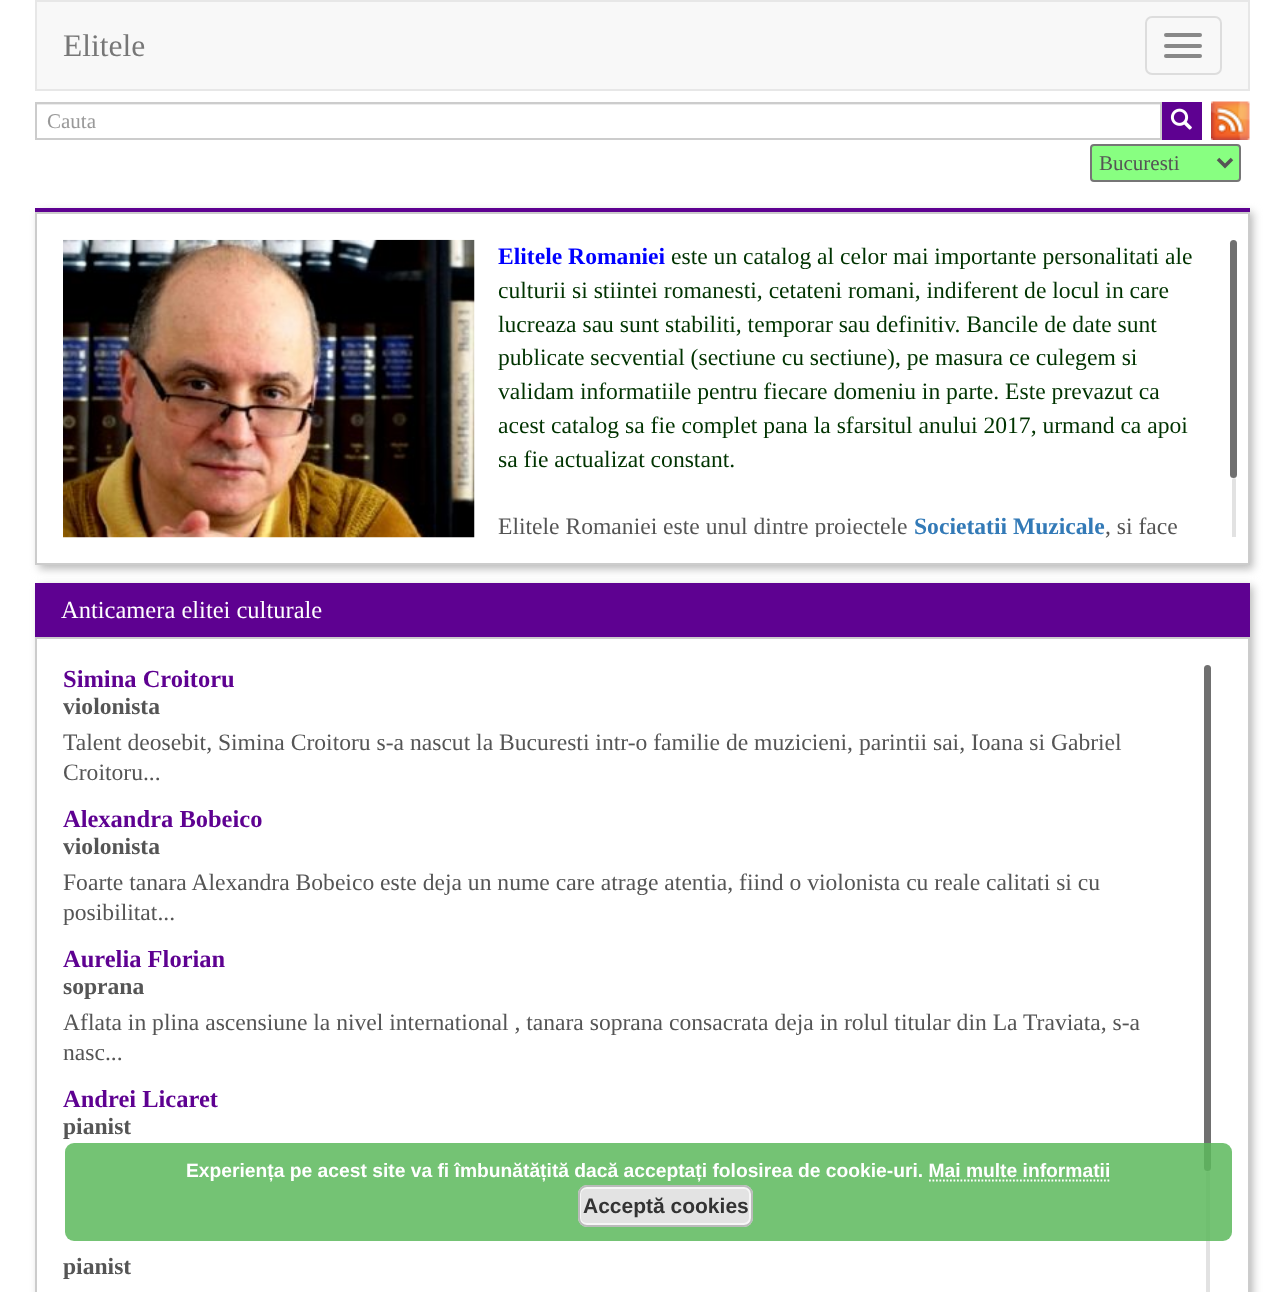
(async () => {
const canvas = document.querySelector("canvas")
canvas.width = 1284
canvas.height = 1292
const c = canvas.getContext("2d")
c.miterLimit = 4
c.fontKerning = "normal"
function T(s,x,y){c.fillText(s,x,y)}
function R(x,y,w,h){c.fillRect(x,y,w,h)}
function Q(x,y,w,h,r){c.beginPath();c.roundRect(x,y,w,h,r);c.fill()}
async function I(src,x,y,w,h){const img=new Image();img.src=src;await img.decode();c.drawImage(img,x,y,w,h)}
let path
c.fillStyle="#fff"
R(0,0,1284,1292)
c.fillStyle="#f8f8f8"
c.beginPath()
c.rect(36,1,1213,89)
c.fill()
c.strokeStyle="#e7e7e7"
c.lineWidth=2
c.stroke()
c.font="31.5px Liberation Serif"
c.fillStyle="#777"
T("Elitele",63,56)
c.beginPath()
c.roundRect(1146,17,75,57,6)
c.strokeStyle="#ddd"
c.stroke()
c.fillStyle="#888"
Q(1164,33,38,4,2)
Q(1164,44,38,4,2)
Q(1164,54,38,4,2)
c.fillStyle="#ececec"
R(37,104,1123,1)
c.strokeStyle="#ccc"
c.strokeRect(36,103,1125,36)
c.font="21px Liberation Serif"
c.fillStyle="#999"
T("Cauta",47,128)
c.fillStyle="#5e0191"
R(1162,102,40,38)
await I("1.png",1170,108,22,22)
await I("2.png",1211,101,39,39)
c.fillStyle="#88ff81"
c.beginPath()
c.roundRect(1091,145,149,36,3)
c.fill()
c.strokeStyle="#767676"
c.stroke()
path = new Path2D("M1218 159l7 7l7-7")
c.strokeStyle="#555"
c.lineWidth=3.5
c.stroke(path)
c.fillStyle="#555"
T("Bucuresti",1099,170)
c.save()
path = new Path2D("M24 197h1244v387h-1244zm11 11h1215v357h-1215z")
c.clip(path,"evenodd")
c.fillStyle="#bbb"
c.filter="blur(4.5px)"
c.beginPath()
c.rect(39,212,1214,357)
c.fill()
c.filter="none"
c.restore()
c.fillStyle="#5e0191"
R(35,208,1215,4)
c.strokeStyle="#ccc"
c.lineWidth=2
c.strokeRect(36,213,1213,351)
await I("3.png",63,239,412,299)
c.font="bold 23.6px Liberation Serif"
c.fillStyle="#00f"
T("Elitele Romaniei",498,264)
c.font="23.6px Liberation Serif"
c.fillStyle="#030"
T("este un catalog al celor mai importante personalitati ale",671,264)
T("culturii si stiintei romanesti, cetateni romani, indiferent de locul in care",498,298)
T("lucreaza sau sunt stabiliti, temporar sau definitiv. Bancile de date sunt",498,332)
T("publicate secvential (sectiune cu sectiune), pe masura ce culegem si",498,365)
T("validam informatiile pentru fiecare domeniu in parte. Este prevazut ca",498,399)
T("acest catalog sa fie complet pana la sfarsitul anului 2017, urmand ca apoi",498,433)
T("sa fie actualizat constant.",498,467)
c.save()
c.beginPath()
c.rect(63,240,1132,297)
c.clip()
c.fillStyle="#555"
T("Elitele Romaniei este unul dintre proiectele",498,534)
c.restore()
c.font="bold 23.6px Liberation Serif"
c.fillStyle="#337ab7"
T("Societatii Muzicale",914,534)
c.font="23.6px Liberation Serif"
c.fillStyle="#555"
T(", si face",1105,534)
c.fillStyle="#707070"
Q(1230,240,7,238,3.5)
c.fillStyle="#e2e2e2"
c.beginPath()
c.roundRect(1232,478,4,59,[2,2,0,0])
c.fill()
c.save()
path = new Path2D("M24 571h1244v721h-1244zm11 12h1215v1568h-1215z")
c.clip(path,"evenodd")
c.fillStyle="#bbb"
c.filter="blur(4.5px)"
c.beginPath()
c.rect(39,586,1214,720)
c.fill()
c.filter="none"
c.restore()
c.fillStyle="#5e0191"
R(35,583,1215,54)
c.font="24.5px Liberation Serif"
c.fillStyle="#fff"
T("Anticamera elitei culturale",61,618)
c.strokeRect(36,638,1213,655)
c.font="bold 24.5px Liberation Serif"
c.fillStyle="#5e0191"
T("Simina Croitoru",63,687)
c.font="bold 23.6px Liberation Serif"
c.fillStyle="#555"
T("violonista",63,714)
c.font="23.6px Liberation Serif"
T("Talent deosebit, Simina Croitoru s-a nascut la Bucuresti intr-o familie de muzicieni, parintii sai, Ioana si Gabriel",63,750)
T("Croitoru...",63,780)
c.font="bold 24.5px Liberation Serif"
c.fillStyle="#5e0191"
T("Alexandra Bobeico",63,827)
c.font="bold 23.6px Liberation Serif"
c.fillStyle="#555"
T("violonista",63,854)
c.font="23.6px Liberation Serif"
T("Foarte tanara Alexandra Bobeico este deja un nume care atrage atentia, fiind o violonista cu reale calitati si cu",63,890)
T("posibilitat...",63,920)
c.font="bold 24.5px Liberation Serif"
c.fillStyle="#5e0191"
T("Aurelia Florian",63,967)
c.font="bold 23.6px Liberation Serif"
c.fillStyle="#555"
T("soprana",63,994)
c.font="23.6px Liberation Serif"
T("Aflata in plina ascensiune la nivel international , tanara soprana consacrata deja in rolul titular din La Traviata, s-a",63,1030)
T("nasc...",63,1060)
c.font="bold 24.5px Liberation Serif"
c.fillStyle="#5e0191"
T("Andrei Licaret",63,1107)
c.font="bold 23.6px Liberation Serif"
c.fillStyle="#555"
T("pianist",63,1134)
T("pianist",63,1274)
c.fillStyle="#707070"
Q(1204,665,7,506,3.5)
c.fillStyle="#e2e2e2"
Q(1206,1171,4,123,2)
c.fillStyle="#5cb85cd9"
Q(65,1143,1167,98,9)
c.font="bold 19.25px Liberation Sans"
c.fillStyle="#fff"
T("Experiența pe acest site va fi îmbunătățită dacă acceptați folosirea de cookie-uri. Mai multe informatii",186,1177)
path = new Path2D("M929 1180.5h180.5")
c.strokeStyle="#fff"
c.lineWidth=1.8
c.setLineDash([1.75,1.75])
c.stroke(path)
c.fillStyle="#e3e3e3"
Q(578,1185,175,42,9)
c.beginPath()
c.roundRect(580,1188,170,36,6)
c.strokeStyle="#f6f6f6"
c.lineWidth=2
c.setLineDash([])
c.stroke()
c.beginPath()
c.roundRect(579,1186,173,40,8)
c.strokeStyle="#bbb"
c.stroke()
c.font="bold 21px Liberation Sans"
c.fillStyle="#333"
T("Acceptă cookies",583,1213)
})()
